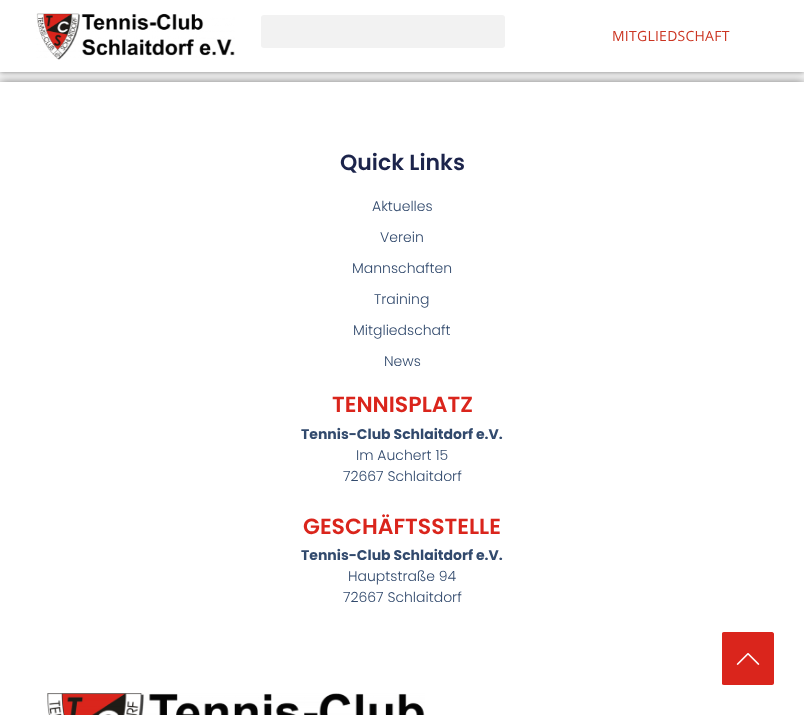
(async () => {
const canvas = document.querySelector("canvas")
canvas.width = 804
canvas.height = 715
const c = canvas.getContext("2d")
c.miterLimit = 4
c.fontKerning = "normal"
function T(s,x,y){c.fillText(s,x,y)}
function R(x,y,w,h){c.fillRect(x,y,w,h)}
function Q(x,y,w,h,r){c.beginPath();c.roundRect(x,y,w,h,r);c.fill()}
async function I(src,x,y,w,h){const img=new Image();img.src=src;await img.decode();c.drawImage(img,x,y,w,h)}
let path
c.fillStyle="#f5f5f5"
R(0,0,804,715)
c.fillStyle="#00000080"
c.filter="blur(2.5px)"
c.beginPath()
c.rect(0,0,804,72)
c.fill()
c.filter="none"
c.filter="blur(5px)"
c.beginPath()
c.rect(0,82,804,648)
c.fill()
c.filter="none"
c.fillStyle="#fff"
R(0,0,804,72)
await I("1.png",36,13,199,47)
c.fillStyle="#f2f2f2"
Q(261,15,244,33,3)
c.letterSpacing="0.25px"
c.font="14px Open Sans"
c.fillStyle="#cb3522"
T("MITGLIEDSCHAFT",612,41)
c.fillStyle="#fff"
R(0,82,804,633)
c.letterSpacing="0px"
c.font="600 22px Poppins"
c.fillStyle="#1c244b"
T("Quick Links",340,170)
c.font="300 14px Poppins"
c.fillStyle="#324a6d"
T("Aktuelles",372,211)
T("Verein",380,242)
T("Mannschaften",352,273)
T("Training",374,304)
T("Mitgliedschaft",353,335)
T("News",384,366)
c.font="600 22px Poppins"
c.fillStyle="#da251c"
T("TENNISPLATZ",332,412)
c.font="bold 14px Poppins"
c.fillStyle="#324a6d"
T("Tennis-Club Schlaitdorf e.V.",301,439)
c.font="300 14px Poppins"
T("Im Auchert 15",356,460)
T("72667 Schlaitdorf",343,481)
c.font="600 22px Poppins"
c.fillStyle="#da251c"
T("GESCHÄFTSSTELLE",303,534)
c.font="bold 14px Poppins"
c.fillStyle="#324a6d"
T("Tennis-Club Schlaitdorf e.V.",301,560)
c.font="300 14px Poppins"
T("Hauptstraße 94",348,581)
T("72667 Schlaitdorf",343,602)
await I("2.png",47,693,378,22)
c.fillStyle="#da251c"
path = new Path2D("M772 685h-48c-2 0-2-1-2-2v-49c0-1 0-2 2-2h48c1 0 2 1 2 2v49c0 1-1 2-2 2z")
c.fill(path)
await I("3.png",736,653,24,12)
})()
